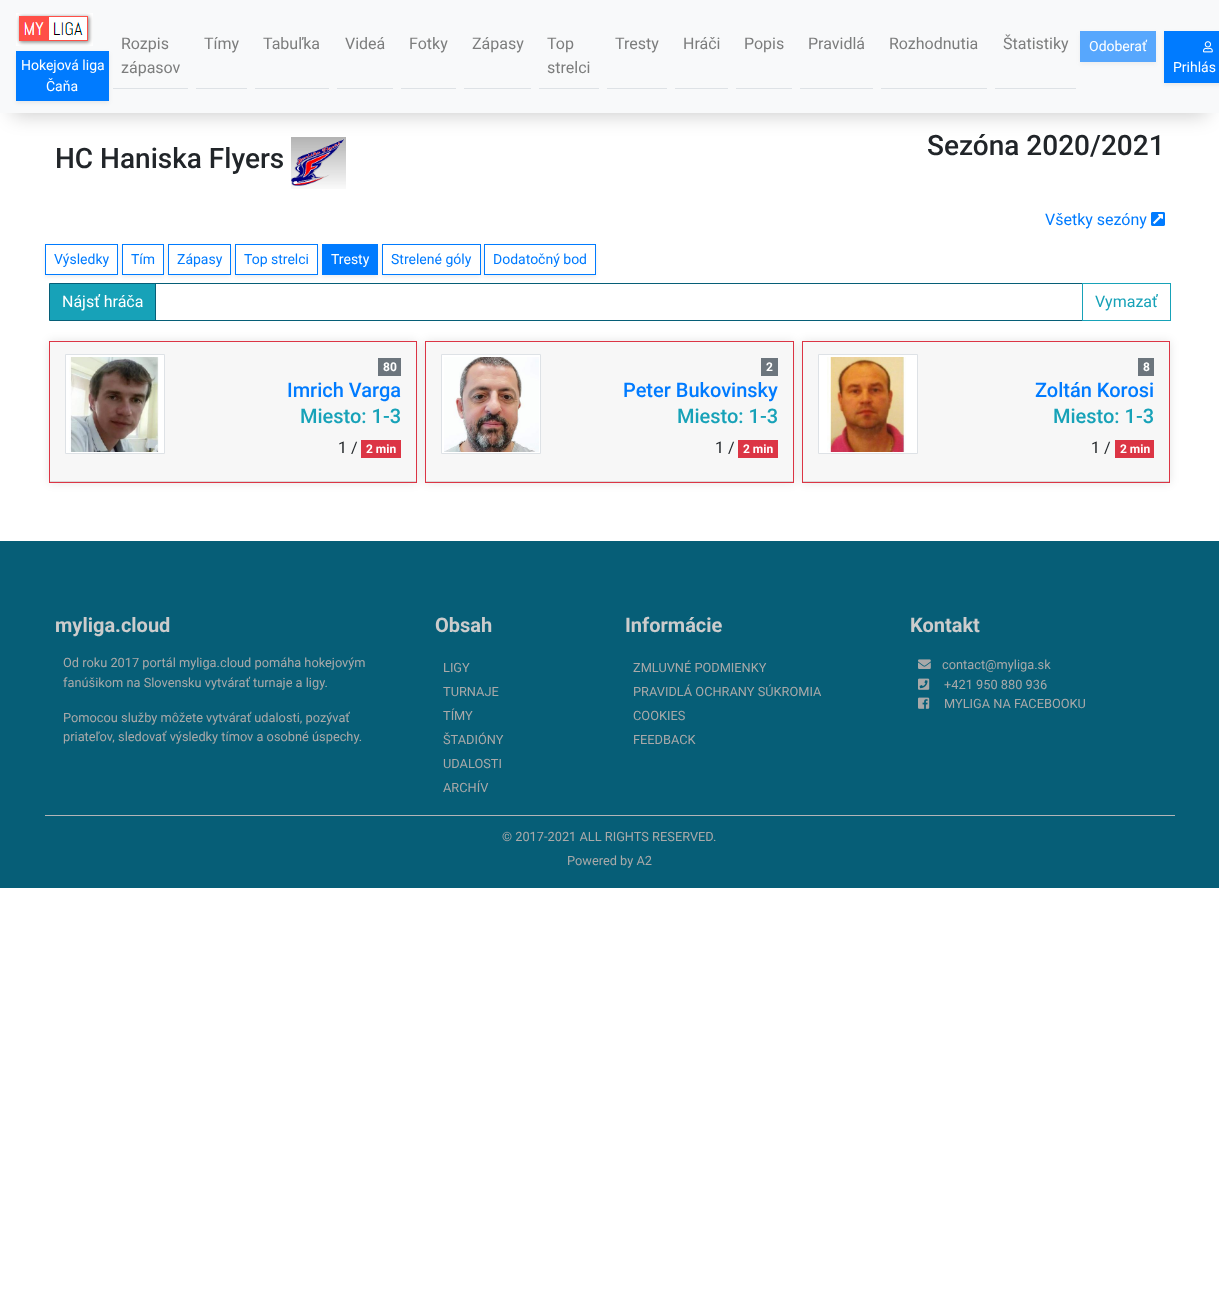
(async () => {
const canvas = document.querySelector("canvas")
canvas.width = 1219
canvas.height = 1309
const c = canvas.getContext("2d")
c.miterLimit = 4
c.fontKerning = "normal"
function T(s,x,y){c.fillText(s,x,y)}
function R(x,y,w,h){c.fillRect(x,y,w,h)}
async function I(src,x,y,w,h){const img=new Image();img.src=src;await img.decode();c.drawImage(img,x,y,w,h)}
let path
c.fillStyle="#fff"
R(0,0,1219,1309)
await I("3.png",291,137,55,52)
c.fillStyle="#00000033"
c.filter="blur(10px)"
c.beginPath()
c.rect(12,26,1195,89)
c.fill()
c.filter="none"
c.fillStyle="#f8f9fa"
R(0,0,1219,113)
await I("1.png",16,13,77,33)
c.fillStyle="#00000012"
c.filter="blur(2px)"
c.beginPath()
c.rect(16,53,93,50)
c.fill()
c.filter="none"
c.fillStyle="#007bff"
R(16,51,93,50)
c.font="14px Roboto"
c.fillStyle="#fff"
T("Hokejová liga",21,70)
T("Čaňa",46,91)
c.fillStyle="#dee2e6"
R(113,88,75,1)
c.font="16px Roboto"
c.fillStyle="#7c7d7d"
T("Rozpis",121,49)
T("zápasov",121,73)
c.fillStyle="#dee2e6"
R(196,88,51,1)
c.fillStyle="#7c7d7d"
T("Tímy",204,49)
c.fillStyle="#dee2e6"
R(255,88,74,1)
c.fillStyle="#7c7d7d"
T("Tabuľka",263,49)
c.fillStyle="#dee2e6"
R(337,88,56,1)
c.fillStyle="#7c7d7d"
T("Videá",345,49)
c.fillStyle="#dee2e6"
R(401,88,55,1)
c.fillStyle="#7c7d7d"
T("Fotky",409,49)
c.fillStyle="#dee2e6"
R(464,88,67,1)
c.fillStyle="#7c7d7d"
T("Zápasy",472,49)
c.fillStyle="#dee2e6"
R(539,88,60,1)
c.fillStyle="#7c7d7d"
T("Top",547,49)
T("strelci",547,73)
c.fillStyle="#dee2e6"
R(607,88,60,1)
c.fillStyle="#7c7d7d"
T("Tresty",615,49)
c.fillStyle="#dee2e6"
R(675,88,53,1)
c.fillStyle="#7c7d7d"
T("Hráči",683,49)
c.fillStyle="#dee2e6"
R(736,88,56,1)
c.fillStyle="#7c7d7d"
T("Popis",744,49)
c.fillStyle="#dee2e6"
R(800,88,73,1)
c.fillStyle="#7c7d7d"
T("Pravidlá",808,49)
c.fillStyle="#dee2e6"
R(881,88,106,1)
c.fillStyle="#7c7d7d"
T("Rozhodnutia",889,49)
c.fillStyle="#dee2e6"
R(995,88,81,1)
c.fillStyle="#7c7d7d"
T("Štatistiky",1003,49)
c.fillStyle="#57575712"
c.filter="blur(2px)"
c.beginPath()
c.rect(1080,33,76,31)
c.fill()
c.filter="none"
c.fillStyle="#57a7fd"
R(1080,31,76,31)
c.font="14px Roboto"
c.fillStyle="#fff"
T("Odoberať",1089,51)
c.fillStyle="#00000012"
c.filter="blur(2px)"
c.beginPath()
c.rect(1164,33,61,52)
c.fill()
c.filter="none"
c.fillStyle="#007bff"
R(1164,31,55,52)
await I("2.png",1203,41,10,12)
c.fillStyle="#fff"
T("Prihlás",1173,72)
c.font="500 28px Roboto"
c.fillStyle="#212529"
T("HC Haniska Flyers",55,168)
T("Sezóna 2020/2021",927,155)
c.font="16px Roboto"
c.fillStyle="#007bff"
T("Všetky sezóny",1045,225)
await I("4.png",1151,212,14,14)
c.save()
path = new Path2D("M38 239h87v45h-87zm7 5h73v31h-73z")
c.clip(path,"evenodd")
c.fillStyle="#00000012"
c.filter="blur(2px)"
c.beginPath()
c.rect(45,246,73,31)
c.fill()
c.filter="none"
c.restore()
c.strokeStyle="#007bff"
c.strokeRect(45.5,244.5,72,30)
c.font="14px Roboto"
T("Výsledky",54,264)
c.save()
path = new Path2D("M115 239h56v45h-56zm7 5h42v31h-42z")
c.clip(path,"evenodd")
c.fillStyle="#00000012"
c.filter="blur(2px)"
c.beginPath()
c.rect(122,246,42,31)
c.fill()
c.filter="none"
c.restore()
c.strokeRect(122.5,244.5,41,30)
T("Tím",131,264)
c.save()
path = new Path2D("M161 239h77v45h-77zm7 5h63v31h-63z")
c.clip(path,"evenodd")
c.fillStyle="#00000012"
c.filter="blur(2px)"
c.beginPath()
c.rect(168,246,63,31)
c.fill()
c.filter="none"
c.restore()
c.strokeRect(168.5,244.5,62,30)
T("Zápasy",177,264)
c.save()
path = new Path2D("M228 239h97v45h-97zm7 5h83v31h-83z")
c.clip(path,"evenodd")
c.fillStyle="#00000012"
c.filter="blur(2px)"
c.beginPath()
c.rect(235,246,83,31)
c.fill()
c.filter="none"
c.restore()
c.strokeRect(235.5,244.5,82,30)
T("Top strelci",244,264)
c.fillStyle="#00000012"
c.filter="blur(2px)"
c.beginPath()
c.rect(322,246,56,31)
c.fill()
c.filter="none"
c.fillStyle="#007bff"
R(322,244,56,31)
c.fillStyle="#fff"
T("Tresty",331,264)
c.save()
path = new Path2D("M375 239h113v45h-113zm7 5h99v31h-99z")
c.clip(path,"evenodd")
c.fillStyle="#00000012"
c.filter="blur(2px)"
c.beginPath()
c.rect(382,246,99,31)
c.fill()
c.filter="none"
c.restore()
c.strokeRect(382.5,244.5,98,30)
c.fillStyle="#007bff"
T("Strelené góly",391,264)
c.save()
path = new Path2D("M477 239h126v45h-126zm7 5h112v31h-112z")
c.clip(path,"evenodd")
c.fillStyle="#00000012"
c.filter="blur(2px)"
c.beginPath()
c.rect(484,246,112,31)
c.fill()
c.filter="none"
c.restore()
c.strokeRect(484.5,244.5,111,30)
T("Dodatočný bod",493,264)
c.fillStyle="#17a2b8"
c.beginPath()
c.rect(49.5,283.5,106,37)
c.fill()
c.strokeStyle="#065e77"
c.stroke()
c.font="16px Roboto"
c.fillStyle="#fff"
T("Nájsť hráča",62,307)
c.strokeRect(155.5,283.5,927,37)
c.strokeStyle="#17a2b8"
c.strokeRect(1082.5,283.5,88,37)
c.fillStyle="#17a2b8"
T("Vymazať",1095,307)
c.fillStyle="#0000001a"
c.filter="blur(5px)"
c.beginPath()
c.rect(49,341,368,142)
c.fill()
c.filter="none"
c.strokeStyle="#dc3545"
c.strokeRect(49.5,341.5,367,141)
c.fillStyle="#f7f7f7"
R(50,342,366,139)
c.fillStyle="#d8d8d8"
R(50,481,366,1)
c.fillStyle="#fff"
c.beginPath()
c.rect(65.5,354.5,99,99)
c.fill()
c.strokeStyle="#dee2e6"
c.stroke()
await I("5.png",69,357,90,95)
c.fillStyle="#6c757d"
R(378,358,23,18)
c.font="bold 12px Roboto"
c.fillStyle="#fff"
T("80",383,371)
c.font="500 20px Roboto"
c.fillStyle="#007bff"
T("Imrich Varga",287,397)
c.fillStyle="#17a2b8"
T("Miesto: 1-3",300,423)
c.font="16px Roboto"
c.fillStyle="#212529"
T("1 /",338,453)
c.fillStyle="#dc3545"
R(361,440,40,18)
c.font="bold 12px Roboto"
c.fillStyle="#fff"
T("2 min",366,453)
c.fillStyle="#0000001a"
c.filter="blur(5px)"
c.beginPath()
c.rect(425,341,369,142)
c.fill()
c.filter="none"
c.strokeStyle="#dc3545"
c.strokeRect(425.5,341.5,368,141)
c.fillStyle="#f7f7f7"
R(426,342,367,139)
c.fillStyle="#d8d8d8"
R(426,481,367,1)
c.fillStyle="#fff"
c.beginPath()
c.rect(441.5,354.5,99,99)
c.fill()
c.strokeStyle="#dee2e6"
c.stroke()
await I("6.png",444,357,95,95)
c.fillStyle="#6c757d"
R(761,358,17,18)
c.fillStyle="#fff"
T("2",766,371)
c.font="500 20px Roboto"
c.fillStyle="#007bff"
T("Peter Bukovinsky",623,397)
c.fillStyle="#17a2b8"
T("Miesto: 1-3",677,423)
c.font="16px Roboto"
c.fillStyle="#212529"
T("1 /",715,453)
c.fillStyle="#dc3545"
R(738,440,40,18)
c.font="bold 12px Roboto"
c.fillStyle="#fff"
T("2 min",743,453)
c.fillStyle="#0000001a"
c.filter="blur(5px)"
c.beginPath()
c.rect(802,341,368,142)
c.fill()
c.filter="none"
c.strokeStyle="#dc3545"
c.strokeRect(802.5,341.5,367,141)
c.fillStyle="#f7f7f7"
R(803,342,366,139)
c.fillStyle="#d8d8d8"
R(803,481,366,1)
c.fillStyle="#fff"
c.beginPath()
c.rect(818.5,354.5,99,99)
c.fill()
c.strokeStyle="#dee2e6"
c.stroke()
await I("7.png",827,357,79,95)
c.fillStyle="#6c757d"
R(1138,358,16,18)
c.fillStyle="#fff"
T("8",1143,371)
c.font="500 20px Roboto"
c.fillStyle="#007bff"
T("Zoltán Korosi",1035,397)
c.fillStyle="#17a2b8"
T("Miesto: 1-3",1053,423)
c.font="16px Roboto"
c.fillStyle="#212529"
T("1 /",1091,453)
c.fillStyle="#dc3545"
R(1115,440,39,18)
c.font="bold 12px Roboto"
c.fillStyle="#fff"
T("2 min",1120,453)
c.fillStyle="#065e77"
R(0,541,1219,347)
c.font="bold 20px Roboto"
c.fillStyle="#ccc"
T("myliga.cloud",55,632)
c.font="12.8px Roboto"
c.fillStyle="#a9a9a9"
T("Od roku 2017 portál myliga.cloud pomáha hokejovým",63,667)
T("fanúšikom na Slovensku vytvárať turnaje a ligy.",63,687)
T("Pomocou služby môžete vytvárať udalosti, pozývať",63,722)
T("priateľov, sledovať výsledky tímov a osobné úspechy.",63,741)
c.font="bold 20px Roboto"
c.fillStyle="#ccc"
T("Obsah",435,632)
c.font="12.8px Roboto"
c.fillStyle="#a9a9a9"
T("LIGY",443,672)
T("TURNAJE",443,696)
T("TÍMY",443,720)
T("ŠTADIÓNY",443,744)
T("UDALOSTI",443,768)
T("ARCHÍV",443,792)
c.font="bold 20px Roboto"
c.fillStyle="#ccc"
T("Informácie",625,632)
c.font="12.8px Roboto"
c.fillStyle="#a9a9a9"
T("ZMLUVNÉ PODMIENKY",633,672)
T("PRAVIDLÁ OCHRANY SÚKROMIA",633,696)
T("COOKIES",633,720)
T("FEEDBACK",633,744)
c.font="bold 20px Roboto"
c.fillStyle="#ccc"
T("Kontakt",910,632)
await I("8.png",918,659,13,10)
c.font="12.8px Roboto"
c.fillStyle="#a9a9a9"
T("contact@myliga.sk",942,669)
await I("9.png",918,678,12,12)
T("+421 950 880 936",944,689)
await I("10.png",918,697,12,12)
T("MYLIGA NA FACEBOOKU",944,708)
c.fillStyle="#b2b5b8"
R(45,815,1130,1)
c.fillStyle="#a9a9a9"
T("© 2017-2021 ALL RIGHTS RESERVED.",502,841)
T("Powered by A2",567,865)
})()
